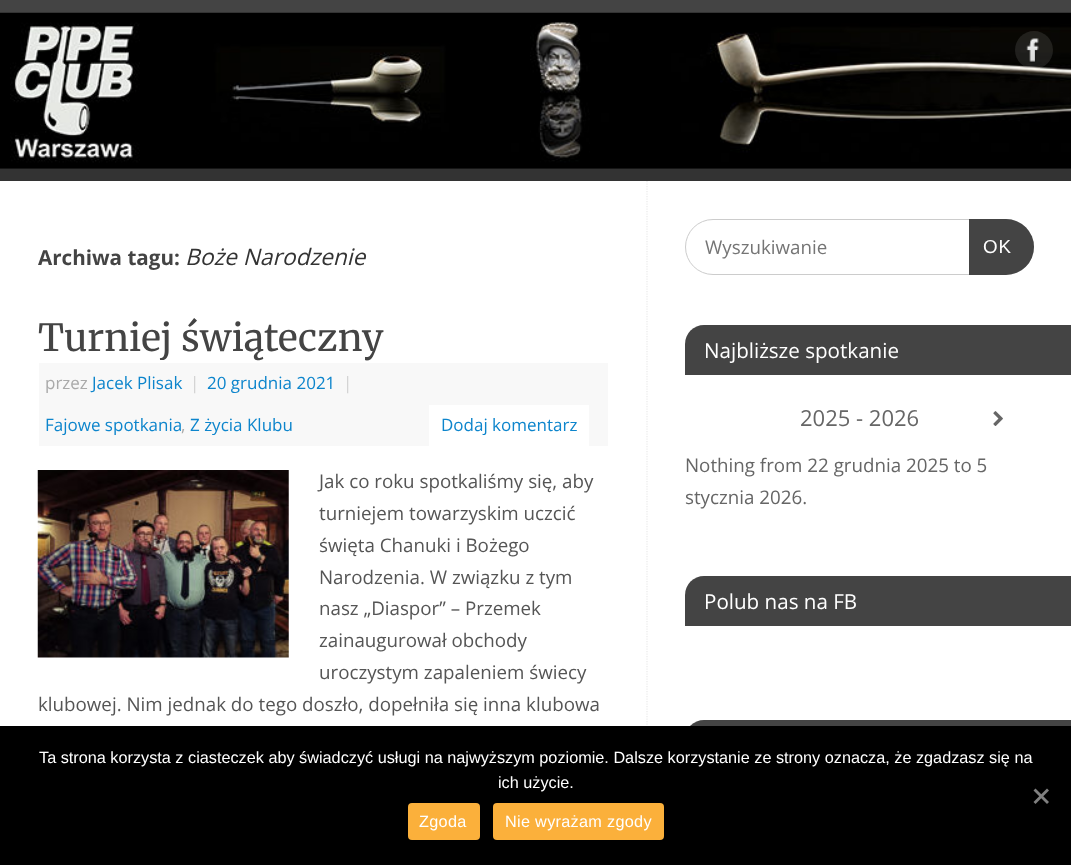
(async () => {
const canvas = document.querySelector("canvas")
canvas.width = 1071
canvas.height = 865
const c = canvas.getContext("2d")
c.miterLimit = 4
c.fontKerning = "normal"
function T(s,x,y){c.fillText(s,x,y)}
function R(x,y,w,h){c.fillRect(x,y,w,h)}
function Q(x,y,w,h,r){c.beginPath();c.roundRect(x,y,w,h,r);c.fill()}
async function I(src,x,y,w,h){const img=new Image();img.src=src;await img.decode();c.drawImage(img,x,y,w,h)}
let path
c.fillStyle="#444"
R(0,0,1071,865)
c.fillStyle="#333"
R(0,168,1071,13)
await I("1.png",0,12,1071,157)
c.fillStyle="#ffffff1a"
c.beginPath()
c.arc(1034,50,19,0,7)
c.fill()
await I("2.png",1026,38,13,25)
c.fillStyle="#fff"
R(0,181,1071,545)
c.font="bold 20.6px Open Sans"
c.fillStyle="#444"
T("Archiwa tagu:",38,265)
c.font="italic 22.75px Open Sans"
c.fillStyle="#333"
T("Boże Narodzenie",185,265)
c.font="37.5px Merriweather"
c.fillStyle="#444"
T("Turniej świąteczny",38,351)
c.fillStyle="#f8f8f8"
R(39,363,569,83)
c.font="17px Open Sans"
c.fillStyle="#aaa"
T("przez",45,389)
c.fillStyle="#0d85cc"
T("Jacek Plisak",92,389)
c.fillStyle="#d1d1d1"
T("|",190,389)
c.fillStyle="#0d85cc"
T("20 grudnia 2021",207,389)
c.fillStyle="#d1d1d1"
T("|",343,389)
c.fillStyle="#0d85cc"
T("Fajowe spotkania",45,431)
c.fillStyle="#aaa"
T(",",181,431)
c.fillStyle="#0d85cc"
T("Z życia Klubu",190,431)
c.fillStyle="#fff"
R(429,405,160,41)
c.fillStyle="#0d85cc"
T("Dodaj komentarz",441,431)
await I("3.png",37,470,252,188)
c.font="18.75px Open Sans"
c.fillStyle="#555"
T("Jak co roku spotkaliśmy się, aby",319,488)
T("turniejem towarzyskim uczcić",319,520)
T("święta Chanuki i Bożego",319,552)
T("Narodzenia. W związku z tym",319,584)
T("nasz „Diaspor” – Przemek",319,615)
T("zainaugurował obchody",319,647)
T("uroczystym zapaleniem świecy",319,679)
T("klubowej. Nim jednak do tego doszło, dopełniła się inna klubowa",38,711)
path = new Path2D("M647 181v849")
c.strokeStyle="#eaeaea"
c.lineWidth=1.2
c.setLineDash([1.25,1.25])
c.stroke(path)
c.beginPath()
c.roundRect(685.5,219.5,348,55,27.5)
c.strokeStyle="#ccc"
c.lineWidth=1
c.setLineDash([])
c.stroke()
c.fillStyle="#757575"
T("Wyszukiwanie",705,254)
c.fillStyle="#444"
c.beginPath()
c.roundRect(969,219,65,56,[0,28,28,0])
c.fill()
c.letterSpacing="1px"
c.font="18.75px Liberation Sans"
c.fillStyle="#fff"
T("OK",983,253)
c.fillStyle="#444"
c.beginPath()
c.roundRect(685,325,386,50,[19,0,0,0])
c.fill()
c.letterSpacing="0px"
c.font="20.6px Open Sans"
c.fillStyle="#fff"
T("Najbliższe spotkanie",704,358)
c.font="22px Open Sans"
c.fillStyle="#666"
T("2025 - 2026",800,426)
await I("4.png",993,411,10,15)
c.font="18.75px Open Sans"
T("Nothing from 22 grudnia 2025 to 5",685,472)
T("stycznia 2026.",685,504)
c.fillStyle="#444"
c.beginPath()
c.roundRect(685,576,386,50,[19,0,0,0])
c.fill()
c.font="20.6px Open Sans"
c.fillStyle="#fff"
T("Polub nas na FB",704,609)
c.fillStyle="#444"
c.beginPath()
c.roundRect(685,720,386,50,[19,0,0,0])
c.fill()
c.fillStyle="#000"
R(0,726,1071,139)
c.font="16.25px Liberation Sans"
c.fillStyle="#fff"
T("Ta strona korzysta z ciasteczek aby świadczyć usługi na najwyższym poziomie. Dalsze korzystanie ze strony oznacza, że zgadzasz się na",39,763)
T("ich użycie.",498,788)
c.fillStyle="#808080"
path = new Path2D("M1047 788.5l2 2l-13.5 13.5l-2-2z")
c.fill(path)
path = new Path2D("M1033.5 790.5l2-2l13.5 13.5l-2 2z")
c.fill(path)
c.fillStyle="#fbb03b"
Q(408,803,72,37,4)
c.letterSpacing="0.3px"
c.fillStyle="#fff"
T("Zgoda",419,827)
c.fillStyle="#fbb03b"
Q(493,803,171,37,4)
c.fillStyle="#fff"
T("Nie wyrażam zgody",505,827)
})()
